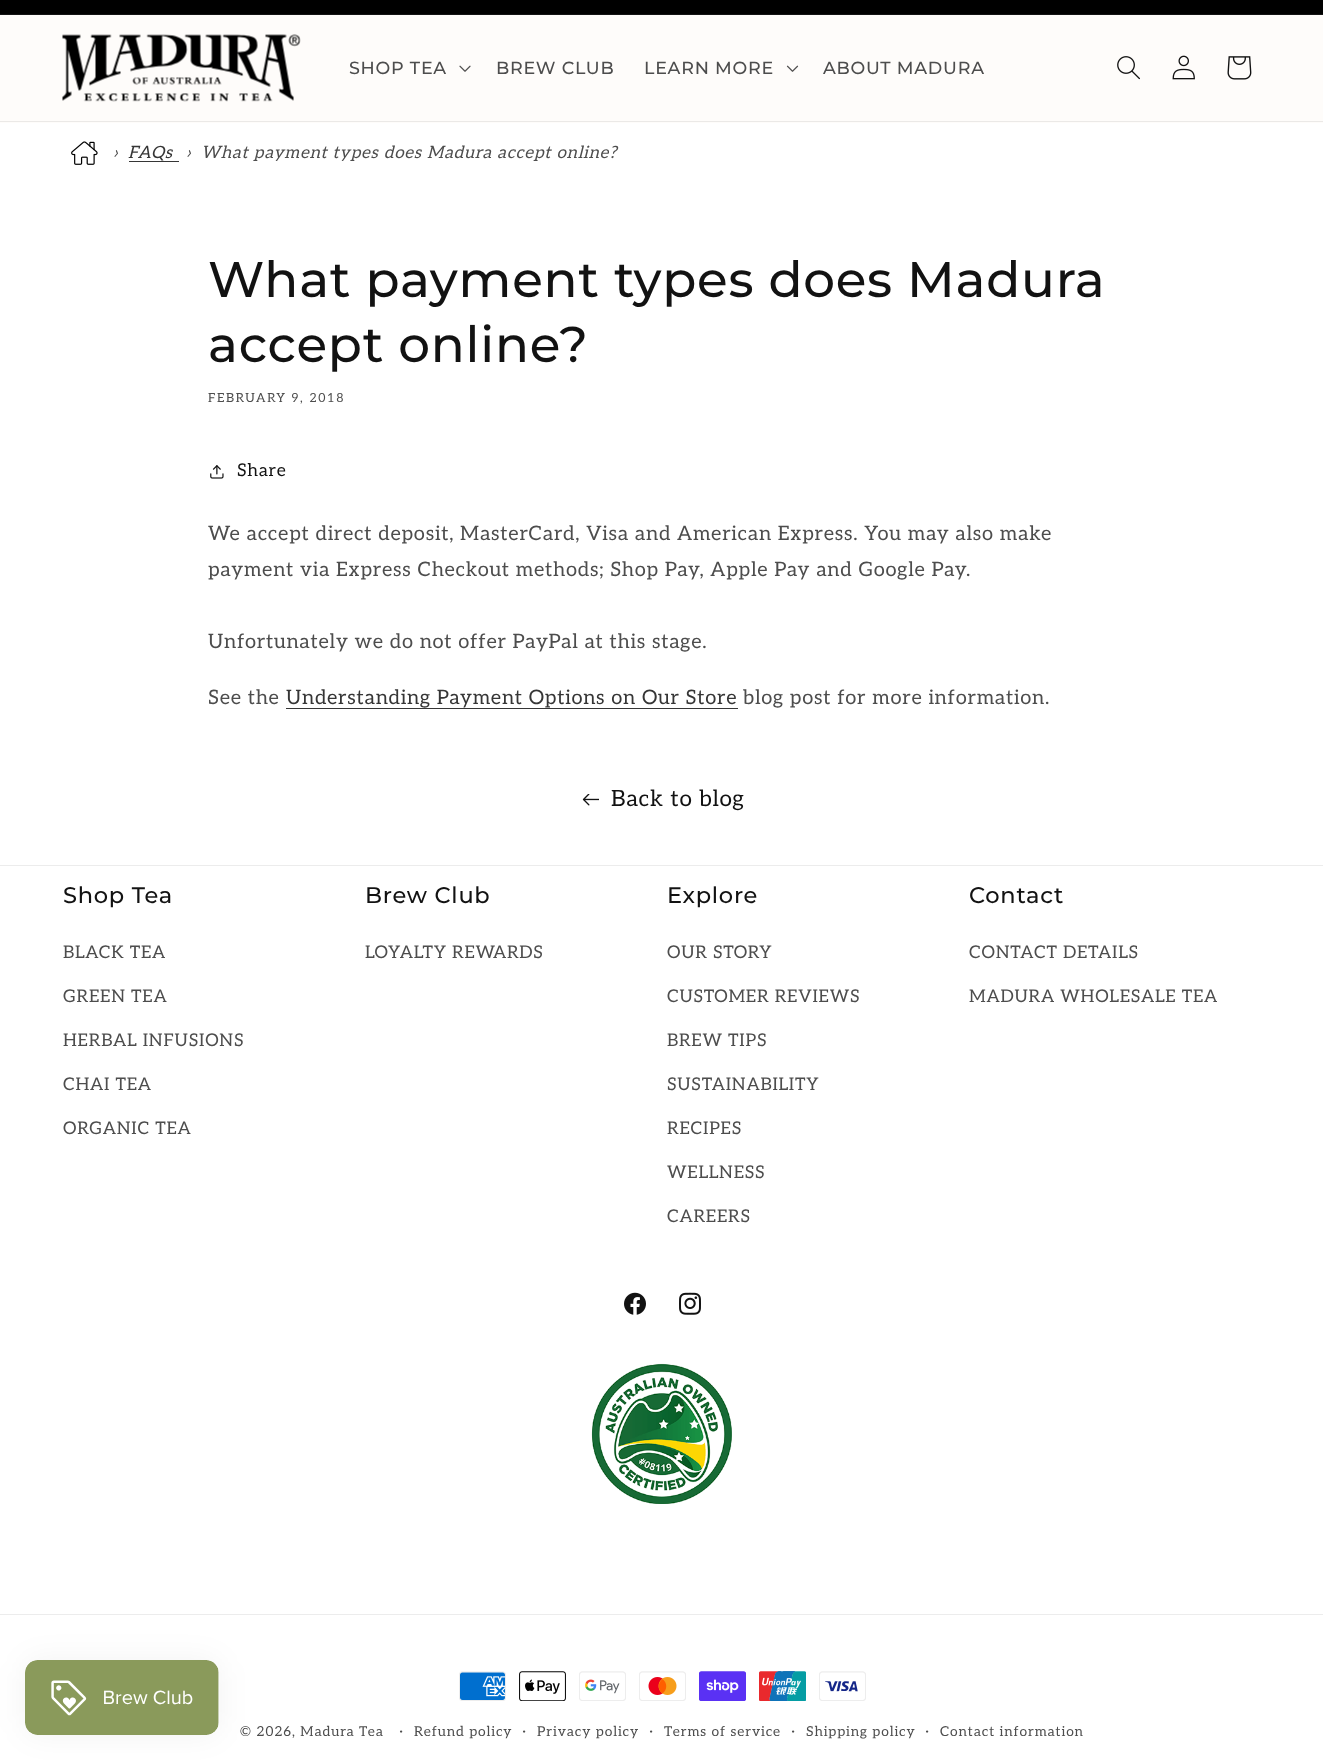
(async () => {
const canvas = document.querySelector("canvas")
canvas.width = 1323
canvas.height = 1760
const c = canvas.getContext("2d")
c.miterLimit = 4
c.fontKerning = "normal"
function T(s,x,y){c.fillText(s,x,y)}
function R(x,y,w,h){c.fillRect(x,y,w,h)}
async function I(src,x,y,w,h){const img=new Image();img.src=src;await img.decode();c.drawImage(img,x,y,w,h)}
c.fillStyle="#fff"
R(0,0,1323,1760)
c.fillStyle="#000"
R(0,0,1323,14)
c.fillStyle="#141414"
R(0,14,1323,1)
c.fillStyle="#fefcfa"
R(0,15,1323,108)
c.fillStyle="#ebe9e7"
R(0,121,1323,1)
await I("1.png",62,34,239,68)
c.letterSpacing="0.75px"
c.font="500 17.5px Montserrat"
c.fillStyle="#4d4d4d"
T("SHOP TEA",349,74)
await I("2.png",459,65,12,7)
T("BREW CLUB",496,74)
T("LEARN MORE",644,74)
await I("3.png",786,65,13,7)
T("ABOUT MADURA",823,74)
await I("4.png",1117,56,23,24)
await I("5.png",1172,55,23,25)
await I("6.png",1227,56,25,24)
await I("7.png",71,141,27,24)
c.font="italic 17px Aleo"
T("›",113,158)
c.fillStyle="#363636"
T("FAQs",128,158)
R(129,161,50,1)
c.fillStyle="#4d4d4d"
T("›",186,158)
T("What payment types does Madura accept online?",201,158)
c.font="500 50px Montserrat"
c.fillStyle="#121212"
T("What payment types does Madura",208,297)
T("accept online?",208,362)
c.letterSpacing="1.6px"
c.font="12.5px Aleo"
c.fillStyle="#4d4d4d"
T("FEBRUARY 9, 2018",208,402)
await I("8.png",210,465,14,14)
c.letterSpacing="0.75px"
c.font="17.5px Aleo"
c.fillStyle="#121212"
T("Share",237,476)
c.font="20px Aleo"
c.fillStyle="#4d4d4d"
T("We accept direct deposit, MasterCard, Visa and American Express. You may also make",208,540)
T("payment via Express Checkout methods; Shop Pay, Apple Pay and Google Pay.",208,576)
T("Unfortunately we do not offer PayPal at this stage.",208,648)
T("See the",208,704)
c.fillStyle="#363636"
T("Understanding Payment Options on Our Store",286,704)
R(286,708,452,1)
c.fillStyle="#4d4d4d"
T("blog post for more information.",743,704)
await I("9.png",582,794,17,12)
c.font="22.5px Aleo"
c.fillStyle="#121212"
T("Back to blog",611,806)
c.fillStyle="#ececec"
R(0,865,1323,1)
c.font="500 22.5px Montserrat"
c.fillStyle="#121212"
T("Shop Tea",63,903)
c.font="17.5px Aleo"
c.fillStyle="#4d4d4d"
T("BLACK TEA",63,958)
T("GREEN TEA",63,1002)
T("HERBAL INFUSIONS",63,1046)
T("CHAI TEA",63,1090)
T("ORGANIC TEA",63,1134)
c.font="500 22.5px Montserrat"
c.fillStyle="#121212"
T("Brew Club",365,903)
c.font="17.5px Aleo"
c.fillStyle="#4d4d4d"
T("LOYALTY REWARDS",365,958)
c.font="500 22.5px Montserrat"
c.fillStyle="#121212"
T("Explore",667,903)
c.font="17.5px Aleo"
c.fillStyle="#4d4d4d"
T("OUR STORY",667,958)
T("CUSTOMER REVIEWS",667,1002)
T("BREW TIPS",667,1046)
T("SUSTAINABILITY",667,1090)
T("RECIPES",667,1134)
T("WELLNESS",667,1178)
T("CAREERS",667,1222)
c.font="500 22.5px Montserrat"
c.fillStyle="#121212"
T("Contact",969,903)
c.font="17.5px Aleo"
c.fillStyle="#4d4d4d"
T("CONTACT DETAILS",969,958)
T("MADURA WHOLESALE TEA",969,1002)
await I("10.png",624,1292,22,23)
await I("11.png",679,1292,22,23)
await I("12.png",591,1363,141,141)
c.fillStyle="#ececec"
R(0,1614,1323,1)
await I("13.png",459,1671,47,30)
await I("14.png",519,1671,47,30)
await I("15.png",579,1671,47,30)
await I("16.png",639,1671,47,30)
await I("17.png",699,1671,47,30)
await I("18.png",759,1671,47,30)
await I("19.png",819,1671,47,30)
c.letterSpacing="0.9px"
c.font="13.75px Aleo"
c.fillStyle="#4d4d4d"
T("© 2026, Madura Tea",240,1736)
c.font="15px Aleo"
T("·",399,1736)
c.font="13.75px Aleo"
T("Refund policy",414,1736)
c.font="15px Aleo"
T("·",522,1736)
c.font="13.75px Aleo"
T("Privacy policy",537,1736)
c.font="15px Aleo"
T("·",649,1736)
c.font="13.75px Aleo"
T("Terms of service",664,1736)
c.font="15px Aleo"
T("·",791,1736)
c.font="13.75px Aleo"
T("Shipping policy",806,1736)
c.font="15px Aleo"
T("·",925,1736)
c.font="13.75px Aleo"
T("Contact information",940,1736)
c.fillStyle="#0000000d"
c.filter="blur(15.5px)"
c.beginPath()
c.roundRect(25,1660,194,75,13)
c.fill()
c.filter="none"
await I("20.png",25,1660,194,75)
})()
